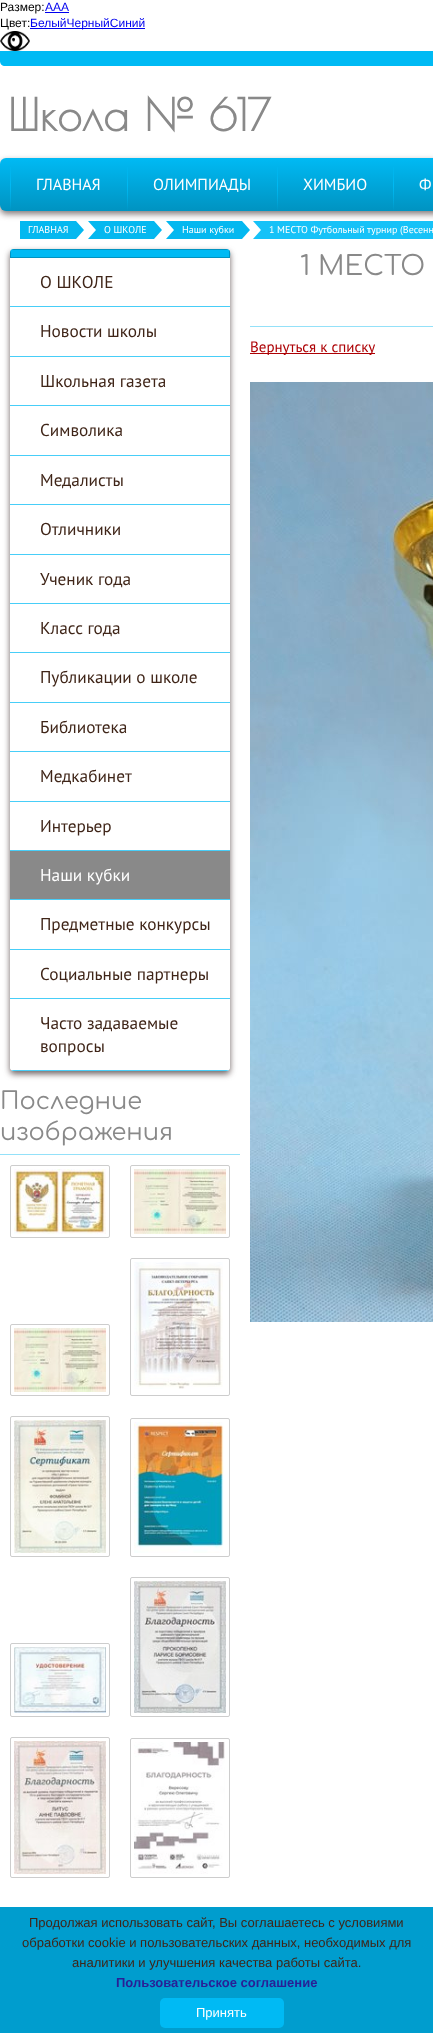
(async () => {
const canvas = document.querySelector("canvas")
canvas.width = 433
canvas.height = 2033
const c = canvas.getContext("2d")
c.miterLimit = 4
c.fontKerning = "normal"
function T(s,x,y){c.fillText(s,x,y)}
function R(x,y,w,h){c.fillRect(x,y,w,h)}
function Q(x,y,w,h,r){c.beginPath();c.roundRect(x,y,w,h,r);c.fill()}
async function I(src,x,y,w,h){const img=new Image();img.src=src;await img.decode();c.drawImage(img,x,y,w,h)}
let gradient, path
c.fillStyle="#fff"
R(0,0,433,2033)
c.font="12px Liberation Sans"
c.fillStyle="#000"
T("Размер:",0,11)
c.fillStyle="#00e"
T("ААА",45,11)
R(45,12,24,1)
c.fillStyle="#000"
T("Цвет:",0,27)
c.fillStyle="#00e"
R(30,28,115,1)
T("БелыйЧерныйСиний",30,27)
await I("1.png",0,31,30,20)
c.fillStyle="#00baf4"
path = new Path2D("M0 51h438v10c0 3-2 5-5 5h-428c-3 0-5-2-5-5z")
c.fill(path)
c.font="bold 44px Poiret One"
c.fillStyle="#898989"
T("Школа № 617",8,131)
c.fillStyle="#483b3bb0"
c.filter="blur(3px)"
c.beginPath()
c.roundRect(0,161,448,53,6)
c.fill()
c.filter="none"
gradient = c.createLinearGradient(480,158,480,211)
gradient.addColorStop(0,"#00baf4")
gradient.addColorStop(1,"#0093c1")
c.fillStyle = gradient
Q(0,158,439,53,6)
gradient = c.createLinearGradient(10,158,11,211)
gradient.addColorStop(0,"#00baf400")
gradient.addColorStop(.5,"#00baf4")
gradient.addColorStop(1,"#00baf400")
c.fillStyle = gradient
R(10,167,1,44)
c.font="16px PT Sans"
c.fillStyle="#fff"
T("ГЛАВНАЯ",36,190)
gradient = c.createLinearGradient(128,158,128,211)
gradient.addColorStop(0,"#00baf400")
gradient.addColorStop(.5,"#00baf4")
gradient.addColorStop(1,"#00baf400")
c.fillStyle = gradient
R(127,167,1,44)
c.fillStyle="#fff"
T("ОЛИМПИАДЫ",153,190)
gradient = c.createLinearGradient(278,158,278,211)
gradient.addColorStop(0,"#00baf400")
gradient.addColorStop(.5,"#00baf4")
gradient.addColorStop(1,"#00baf400")
c.fillStyle = gradient
R(277,167,1,44)
c.fillStyle="#fff"
T("ХИМБИО",303,190)
gradient = c.createLinearGradient(394,158,394,211)
gradient.addColorStop(0,"#00baf400")
gradient.addColorStop(.5,"#00baf4")
gradient.addColorStop(1,"#00baf400")
c.fillStyle = gradient
R(393,167,1,44)
c.fillStyle="#fff"
T("Ф",419,190)
c.fillStyle="#04b8f0"
R(20,221,56,18)
c.font="10px PT Sans"
c.fillStyle="#fff"
T("ГЛАВНАЯ",28,233)
c.fillStyle="#04b8f0"
path = new Path2D("M76 239v-18l8 9zm12-18h8v9z")
c.fill(path)
path = new Path2D("M96 239h-8l8-9z")
c.fill(path)
R(96,221,58,18)
c.fillStyle="#fff"
T("О ШКОЛЕ",104,233)
c.fillStyle="#04b8f0"
path = new Path2D("M154 239v-18l8 9zm12-18h8v9z")
c.fill(path)
path = new Path2D("M174 239h-8l8-9z")
c.fill(path)
R(174,221,68,18)
c.fillStyle="#fff"
T("Наши кубки",182,233)
c.fillStyle="#04b8f0"
path = new Path2D("M242 239v-18l8 9z")
c.fill(path)
c.fillStyle="#16c2f8"
path = new Path2D("M253 221h8v9zm8 18h-8l8-9z")
c.fill(path)
R(261,221,172,18)
c.fillStyle="#fff"
T("1 МЕСТО Футбольный турнир (Весенн",269,233)
c.save()
path = new Path2D("M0 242h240v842h-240zm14 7h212c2 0 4 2 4 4v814c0 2-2 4-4 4h-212c-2 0-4-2-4-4v-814c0-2 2-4 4-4z")
c.clip(path,"evenodd")
c.fillStyle="#483b3bcc"
c.filter="blur(3px)"
c.beginPath()
c.roundRect(10,252,220,822,4)
c.fill()
c.filter="none"
c.restore()
c.fillStyle="#00baf4"
c.beginPath()
c.roundRect(10,249,220,9,[4,4,0,0])
c.fill()
c.fillStyle="#0093c1"
path = new Path2D("M10 253v5h220c0-2 1-6-1-8v7h-218v-7zm4-4l-3 1h218l-3-1z")
c.fill(path,"evenodd")
c.fillStyle="#48cef8"
R(10,306,220,1)
c.font="17.25px PT Sans"
c.fillStyle="#3f2518"
T("О ШКОЛЕ",40,288)
c.fillStyle="#48cef8"
R(10,356,220,1)
c.fillStyle="#3f2518"
T("Новости школы",40,337)
c.fillStyle="#48cef8"
R(10,405,220,1)
c.fillStyle="#3f2518"
T("Школьная газета",40,387)
c.fillStyle="#48cef8"
R(10,455,220,1)
c.fillStyle="#3f2518"
T("Символика",40,436)
c.fillStyle="#48cef8"
R(10,504,220,1)
c.fillStyle="#3f2518"
T("Медалисты",40,486)
c.fillStyle="#48cef8"
R(10,554,220,1)
c.fillStyle="#3f2518"
T("Отличники",40,535)
c.fillStyle="#48cef8"
R(10,603,220,1)
c.fillStyle="#3f2518"
T("Ученик года",40,585)
c.fillStyle="#48cef8"
R(10,652,220,1)
c.fillStyle="#3f2518"
T("Класс года",40,634)
c.fillStyle="#48cef8"
R(10,702,220,1)
c.fillStyle="#3f2518"
T("Публикации о школе",40,683)
c.fillStyle="#48cef8"
R(10,751,220,1)
c.fillStyle="#3f2518"
T("Библиотека",40,733)
c.fillStyle="#48cef8"
R(10,801,220,1)
c.fillStyle="#3f2518"
T("Медкабинет",40,782)
c.fillStyle="#48cef8"
R(10,850,220,1)
c.fillStyle="#3f2518"
T("Интерьер",40,832)
c.fillStyle="#898989"
R(10,851,220,48)
c.fillStyle="#48cef8"
R(10,899,220,1)
c.fillStyle="#fff"
T("Наши кубки",40,881)
c.fillStyle="#48cef8"
R(10,949,220,1)
c.fillStyle="#3f2518"
T("Предметные конкурсы",40,930)
c.fillStyle="#48cef8"
R(10,998,220,1)
c.fillStyle="#3f2518"
T("Социальные партнеры",40,980)
c.fillStyle="#fff"
c.beginPath()
c.roundRect(10,999,220,72,[0,0,4,4])
c.fill()
c.save()
c.beginPath()
c.roundRect(10,249,220,822,4)
c.clip()
c.fillStyle="#48cef8"
R(10,1070,220,1)
c.restore()
c.fillStyle="#3f2518"
T("Часто задаваемые",40,1029)
T("вопросы",40,1052)
c.fillStyle="#94e1f9"
R(0,1154,240,1)
c.font="24px Comfortaa"
c.fillStyle="#898989"
T("Последние",0,1109)
T("изображения",0,1140)
c.beginPath()
c.roundRect(10.5,1165.5,99,72,1.5)
c.strokeStyle="#cdcdcd"
c.stroke()
await I("2.png",14,1169,92,65)
c.beginPath()
c.roundRect(130.5,1165.5,99,72,1.5)
c.stroke()
await I("3.png",134,1169,92,65)
c.beginPath()
c.roundRect(10.5,1324.5,99,71,1.5)
c.stroke()
await I("4.png",14,1328,92,64)
c.beginPath()
c.roundRect(130.5,1258.5,99,137,1.5)
c.stroke()
await I("5.png",134,1262,89,127)
c.beginPath()
c.roundRect(10.5,1416.5,99,140,1.5)
c.stroke()
await I("6.png",14,1420,92,133)
c.beginPath()
c.roundRect(130.5,1418.5,99,138,1.5)
c.stroke()
await I("7.png",134,1422,90,131)
c.beginPath()
c.roundRect(10.5,1643.5,99,73,1.5)
c.stroke()
await I("8.png",14,1647,92,66)
c.beginPath()
c.roundRect(130.5,1577.5,99,139,1.5)
c.stroke()
await I("9.png",134,1581,92,132)
c.beginPath()
c.roundRect(10.5,1737.5,99,140,1.5)
c.stroke()
await I("10.png",14,1741,92,133)
c.beginPath()
c.roundRect(130.5,1738.5,99,139,1.5)
c.stroke()
await I("11.png",134,1742,91,132)
c.fillStyle="#94e1f9"
R(250,326,183,1)
c.font="27px Comfortaa"
c.fillStyle="#898989"
T("1 МЕСТО",300,275)
c.fillStyle="#ad0004"
R(250,353,125,1)
c.font="15px PT Sans"
T("Вернуться к списку",250,352)
await I("12.png",250,382,183,940)
c.fillStyle="#009dce"
R(0,1907,433,126)
c.font="13px Liberation Sans"
c.fillStyle="#3f2518"
T("Продолжая использовать сайт, Вы соглашаетесь с условиями",29,1927)
T("обработки cookie и пользовательских данных, необходимых для",22,1947)
T("аналитики и улучшения качества работы сайта.",72,1967)
c.font="bold 13px Liberation Sans"
c.fillStyle="#291f96"
T("Пользовательское соглашение",116,1987)
c.fillStyle="#00baf4"
Q(160,1998,124,30,5)
c.font="13px Liberation Sans"
c.fillStyle="#fff"
T("Принять",196,2017)
})()
